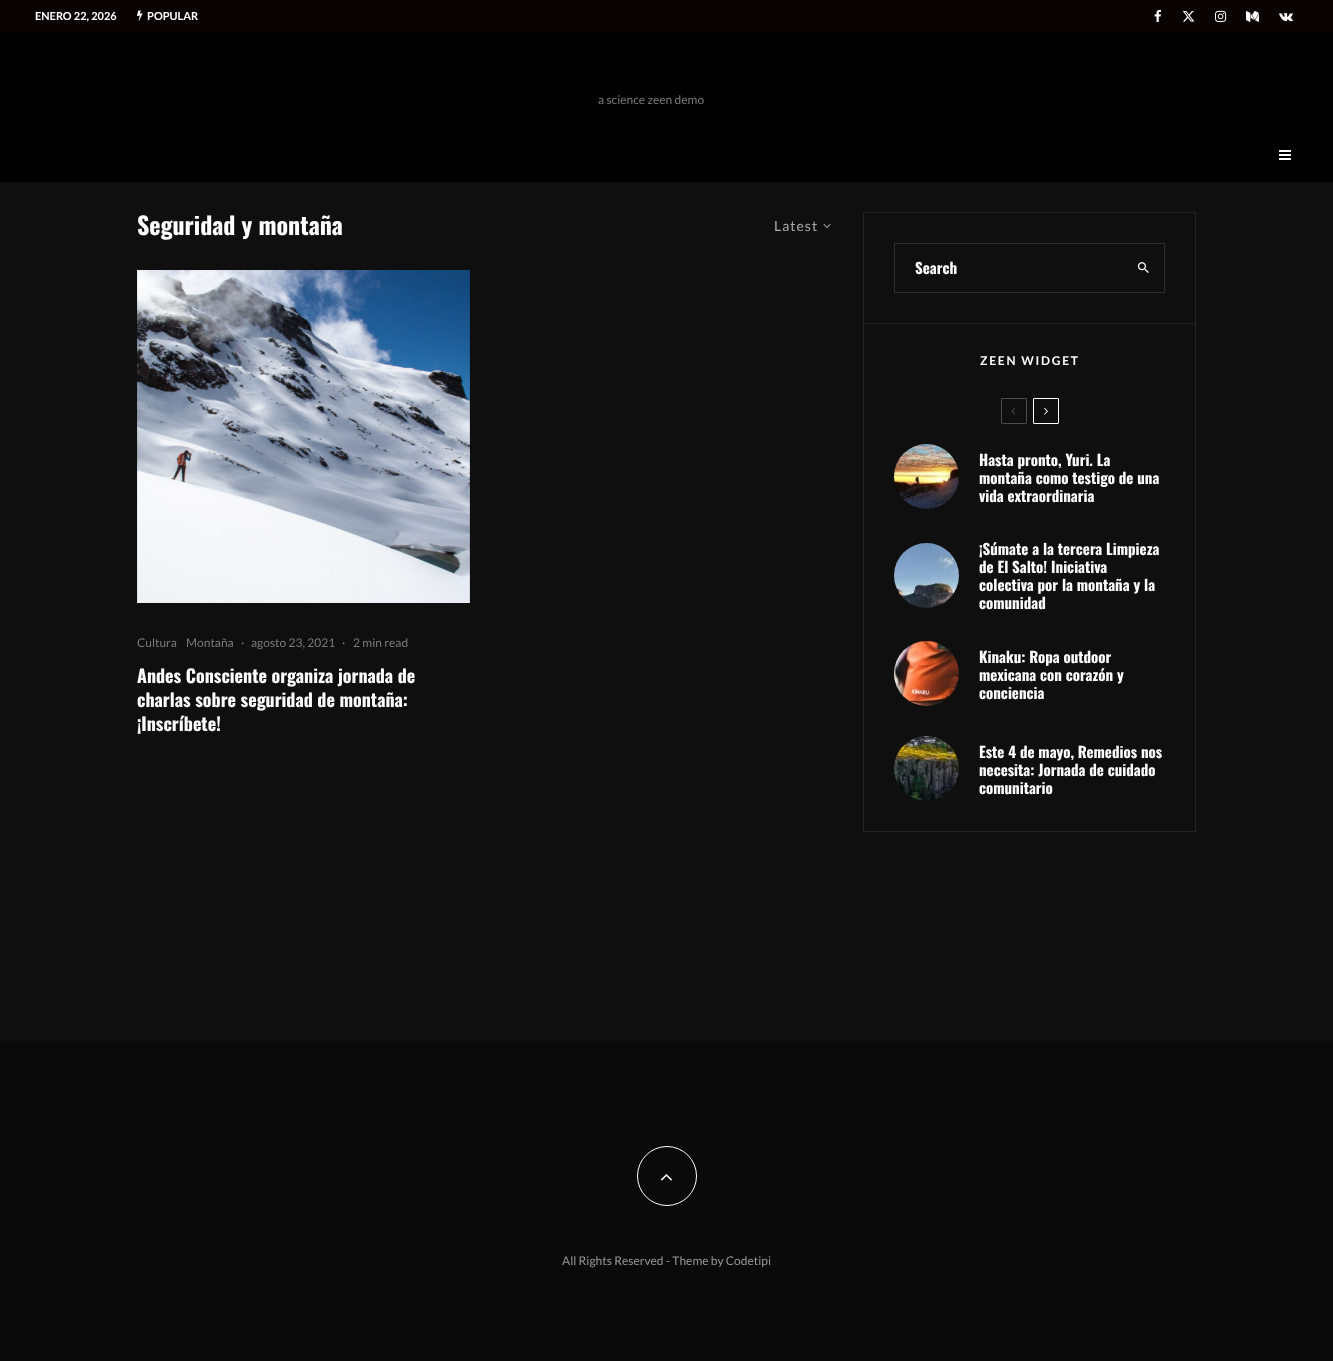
(async () => {
const canvas = document.querySelector("canvas")
canvas.width = 1333
canvas.height = 1361
const c = canvas.getContext("2d")
c.miterLimit = 4
c.fontKerning = "normal"
function T(s,x,y){c.fillText(s,x,y)}
function R(x,y,w,h){c.fillRect(x,y,w,h)}
async function I(src,x,y,w,h){const img=new Image();img.src=src;await img.decode();c.drawImage(img,x,y,w,h)}
c.fillStyle="#0f0f0f"
R(0,0,1333,1361)
c.fillStyle="#0a0303"
R(0,0,1333,32)
c.font="bold 11px Lato"
c.fillStyle="#fff"
T("ENERO 22, 2026",35,20)
await I("1.png",137,10,6,11)
T("POPULAR",147,20)
await I("2.png",1154,9,7,13)
await I("3.png",1182,11,13,11)
await I("4.png",1215,10,12,12)
await I("5.png",1246,11,13,11)
await I("6.png",1279,13,14,9)
c.fillStyle="#000"
R(0,32,1333,150)
c.font="12px Lato"
c.fillStyle="#7b7b7b"
T("a science zeen demo",598,104)
await I("7.png",1279,150,12,10)
c.font="bold 24px Oswald"
c.fillStyle="#fff"
T("Seguridad y montaña",137,235)
c.letterSpacing="1px"
c.font="14px Lato"
c.fillStyle="#aaa"
T("Latest",774,231)
await I("8.png",823,224,8,4)
await I("9.png",137,270,333,333)
c.letterSpacing="0px"
c.font="12px Lato"
c.fillStyle="#7b7b7b"
T("Cultura",137,647)
T("Montaña",186,647)
T("·",241,647)
T("agosto 23, 2021",251,647)
T("·",342,647)
T("2 min read",353,647)
c.font="bold 18px Oswald"
c.fillStyle="#fff"
T("Andes Consciente organiza jornada de",137,683)
T("charlas sobre seguridad de montaña:",137,707)
T("¡Inscríbete!",137,731)
c.strokeStyle="#232323"
c.strokeRect(863.5,212.5,332,619)
c.fillStyle="#232323"
R(864,323,331,1)
c.strokeStyle="#2d2d2d"
c.strokeRect(894.5,243.5,270,49)
c.font="bold 15px Oswald"
c.fillStyle="#fff"
T("Search",915,274)
await I("10.png",1137,262,12,11)
c.letterSpacing="1.75px"
c.font="bold 12px Lato"
T("ZEEN WIDGET",980,365)
c.beginPath()
c.roundRect(1001.5,398.5,25,25,.5)
c.strokeStyle="#4b4b4b"
c.stroke()
await I("11.png",1011,408,4,7)
c.beginPath()
c.roundRect(1033.5,398.5,25,25,.5)
c.strokeStyle="#fff"
c.stroke()
await I("12.png",1044,408,4,7)
await I("13.png",894,444,65,65)
c.letterSpacing="0px"
c.font="bold 15px Oswald"
T("Hasta pronto, Yuri. La",979,466)
T("montaña como testigo de una",979,484)
T("vida extraordinaria",979,502)
await I("14.png",894,543,65,65)
T("¡Súmate a la tercera Limpieza",979,555)
T("de El Salto! Iniciativa",979,573)
T("colectiva por la montaña y la",979,591)
T("comunidad",979,609)
await I("15.png",894,641,65,65)
T("Kinaku: Ropa outdoor",979,663)
T("mexicana con corazón y",979,681)
T("conciencia",979,699)
await I("16.png",894,736,65,65)
T("Este 4 de mayo, Remedios nos",979,758)
T("necesita: Jornada de cuidado",979,776)
T("comunitario",979,794)
c.fillStyle="#0a0a0a"
R(0,1041,1333,320)
c.beginPath()
c.arc(667,1176,29.5,0,7)
c.stroke()
await I("17.png",660,1174,12,7)
c.font="12px Lato"
c.fillStyle="#969696"
T("All Rights Reserved - Theme by Codetipi",562,1265)
})()
